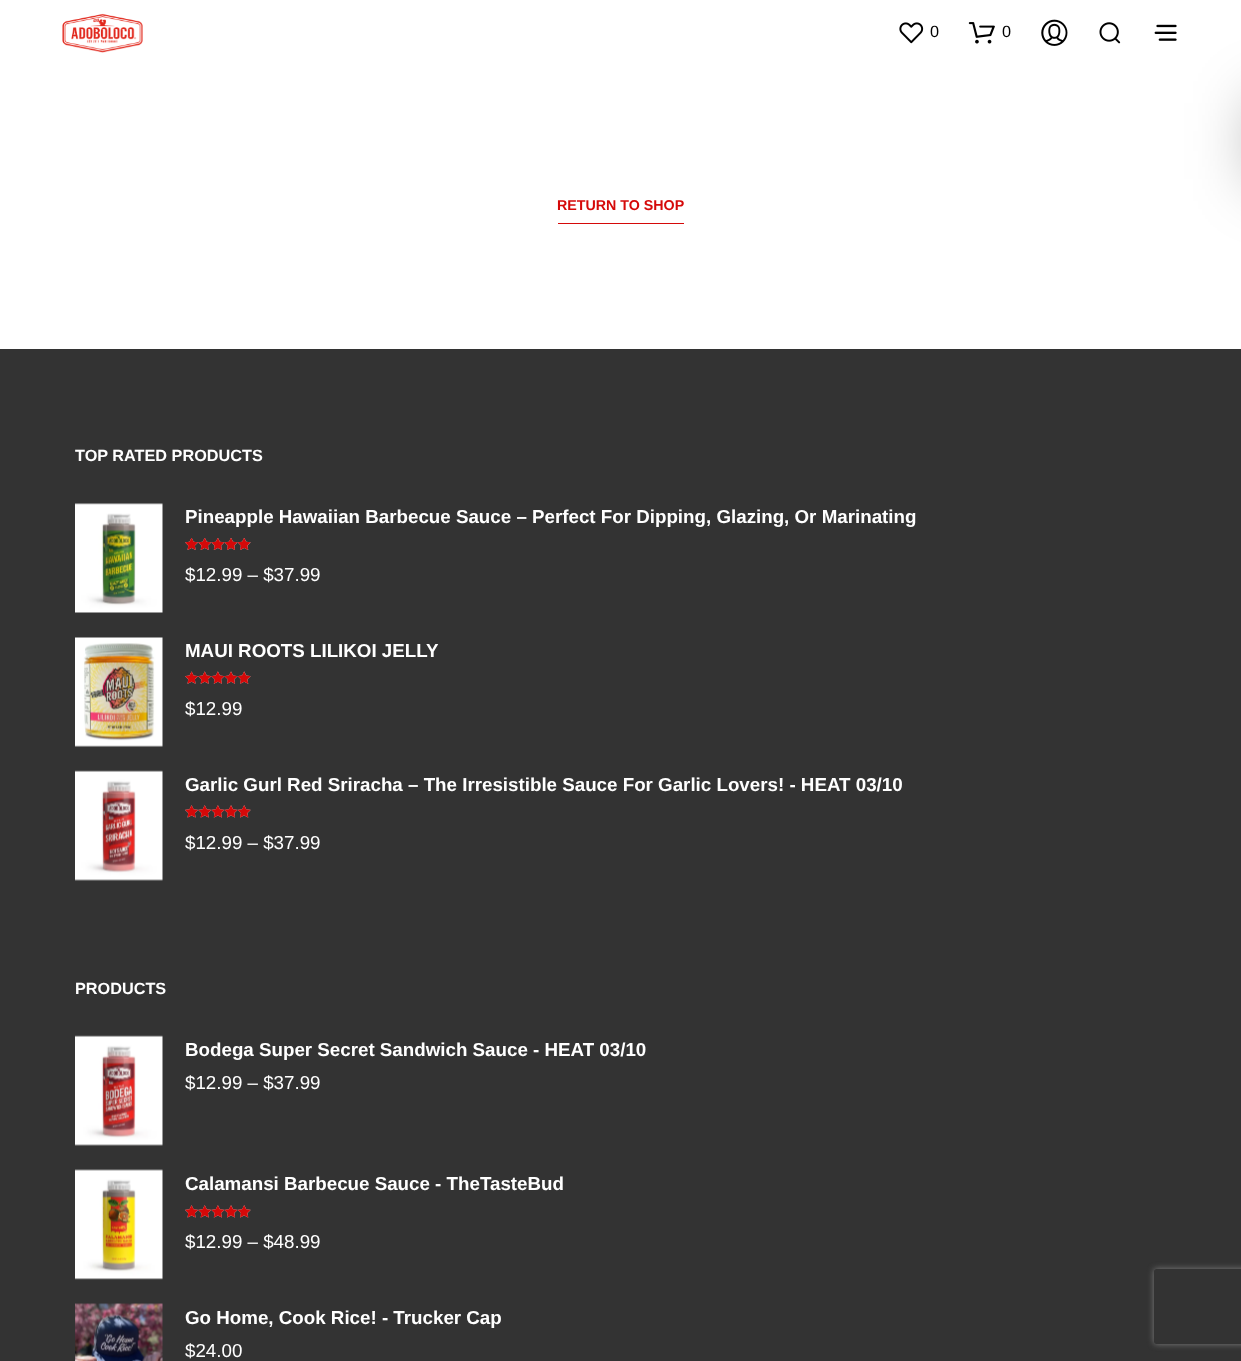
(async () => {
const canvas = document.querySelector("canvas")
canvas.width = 1241
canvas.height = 1361
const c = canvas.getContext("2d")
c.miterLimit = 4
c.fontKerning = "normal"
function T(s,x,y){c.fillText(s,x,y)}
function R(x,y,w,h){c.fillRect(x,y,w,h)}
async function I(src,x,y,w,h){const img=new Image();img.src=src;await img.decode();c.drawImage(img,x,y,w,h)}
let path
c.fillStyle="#fff"
R(0,0,1241,1361)
await I("1.png",62,13,81,40)
await I("2.png",899,22,25,22)
c.font="16.25px Liberation Sans"
c.fillStyle="#000"
T("0",930,37)
await I("3.png",968,22,27,22)
T("0",1002,37)
await I("4.png",1041,19,27,27)
await I("5.png",1099,22,22,22)
await I("6.png",1154,24,23,17)
c.fillStyle="#d50909"
R(558,223,126,1)
c.font="bold 14.25px Liberation Sans"
T("RETURN TO SHOP",557,210)
c.fillStyle="#333"
R(0,349,1241,1012)
c.font="bold 16.25px Liberation Sans"
c.fillStyle="#fff"
T("TOP RATED PRODUCTS",75,461)
await I("7.png",75,503,88,110)
c.font="bold 18.75px Liberation Sans"
T("Pineapple Hawaiian Barbecue Sauce – Perfect For Dipping, Glazing, Or Marinating",185,523)
await I("8.png",185,538,66,12)
await I("9.png",185,538,66,12)
c.font="18.75px Liberation Sans"
T("$12.99 – $37.99",185,581)
await I("10.png",75,637,88,110)
c.font="bold 18.75px Liberation Sans"
T("MAUI ROOTS LILIKOI JELLY",185,657)
await I("11.png",185,671,66,13)
await I("12.png",185,671,66,13)
c.font="18.75px Liberation Sans"
T("$12.99",185,715)
await I("13.png",75,770,88,111)
c.font="bold 18.75px Liberation Sans"
T("Garlic Gurl Red Sriracha – The Irresistible Sauce For Garlic Lovers! - HEAT 03/10",185,791)
await I("14.png",185,805,66,13)
await I("15.png",185,805,66,13)
c.font="18.75px Liberation Sans"
T("$12.99 – $37.99",185,849)
c.font="bold 16.25px Liberation Sans"
T("PRODUCTS",75,994)
await I("16.png",75,1035,88,111)
c.font="bold 18.75px Liberation Sans"
T("Bodega Super Secret Sandwich Sauce - HEAT 03/10",185,1056)
c.font="18.75px Liberation Sans"
T("$12.99 – $37.99",185,1089)
await I("17.png",75,1169,88,111)
c.font="bold 18.75px Liberation Sans"
T("Calamansi Barbecue Sauce - TheTasteBud",185,1190)
await I("14.png",185,1205,66,13)
await I("15.png",185,1205,66,13)
c.font="18.75px Liberation Sans"
T("$12.99 – $48.99",185,1248)
await I("18.png",75,1303,88,58)
c.font="bold 18.75px Liberation Sans"
T("Go Home, Cook Rice! - Trucker Cap",185,1324)
c.font="18.75px Liberation Sans"
T("$24.00",185,1357)
c.fillStyle="#0000005c"
c.filter="blur(32.5px)"
c.beginPath()
c.rect(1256,103,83,76)
c.fill()
c.filter="none"
c.save()
path = new Path2D("M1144 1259h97v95h-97zm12.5 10h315c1.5 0 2.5 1 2.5 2.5v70c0 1.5-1 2.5-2.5 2.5h-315c-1.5 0-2.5-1-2.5-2.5v-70c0-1.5 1-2.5 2.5-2.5z")
c.clip(path,"evenodd")
c.fillStyle="#808080"
c.filter="blur(3px)"
c.beginPath()
c.roundRect(1154,1269,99,75,2.5)
c.fill()
c.filter="none"
c.restore()
})()
